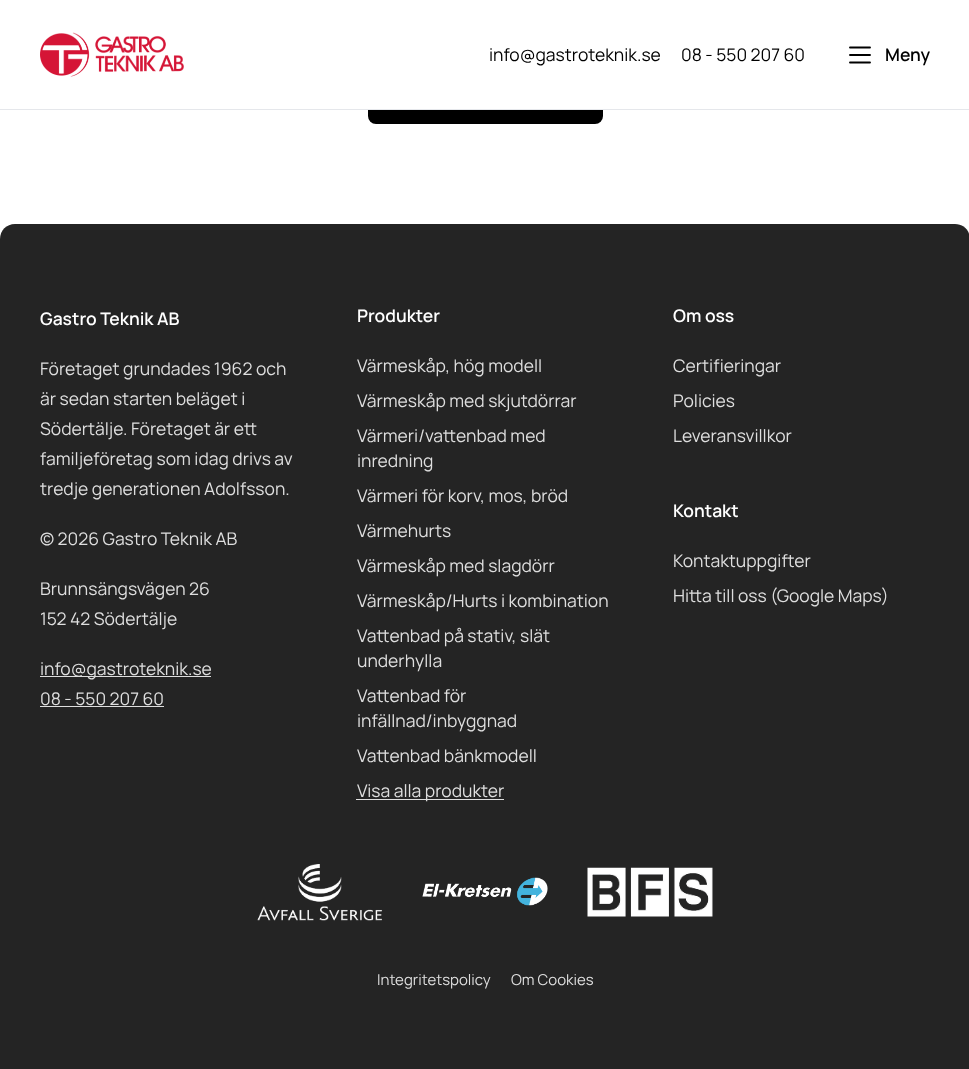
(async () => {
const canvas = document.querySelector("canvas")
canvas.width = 969
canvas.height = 1069
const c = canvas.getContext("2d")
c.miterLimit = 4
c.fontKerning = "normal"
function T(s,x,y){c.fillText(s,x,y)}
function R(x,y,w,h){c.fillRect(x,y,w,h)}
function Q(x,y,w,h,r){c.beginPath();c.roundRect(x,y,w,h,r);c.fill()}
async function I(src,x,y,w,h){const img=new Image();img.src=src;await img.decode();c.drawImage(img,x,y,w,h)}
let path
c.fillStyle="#fff"
R(0,0,969,1069)
c.fillStyle="#000"
Q(368,64,235,60,8)
c.fillStyle="#fff"
R(368,64,235,45)
c.fillStyle="#e5e7eb"
R(0,109,969,1)
await I("1.png",40,32,144,45)
c.font="17.5px Manrope"
c.fillStyle="#000"
T("info@gastroteknik.se",489,61)
T("08 - 550 207 60",681,61)
path = new Path2D("M850 55h20m-20 7.5h20m-20-15h20")
c.strokeStyle="#000"
c.lineWidth=1.9
c.lineCap="round"
c.lineJoin="round"
c.stroke(path)
c.font="600 17.5px Manrope"
T("Meny",885,61)
c.fillStyle="#242424"
path = new Path2D("M15 224h940c8.5 0 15 6.5 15 15v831h-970v-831c0-8.5 6.5-15 15-15z")
c.fill(path)
c.fillStyle="#fff"
T("Gastro Teknik AB",40,325)
c.font="17.5px Manrope"
c.fillStyle="#dedede"
T("Företaget grundades 1962 och",40,375)
T("är sedan starten beläget i",40,405)
T("Södertälje. Företaget är ett",40,435)
T("familjeföretag som idag drivs av",40,465)
T("tredje generationen Adolfsson.",40,495)
T("© 2026 Gastro Teknik AB",40,545)
T("Brunnsängsvägen 26",40,595)
T("152 42 Södertälje",40,625)
R(40,676,171,1)
T("info@gastroteknik.se",40,675)
T("08 - 550 207 60",40,705)
R(40,706,124,1)
c.font="600 17.5px Manrope"
c.fillStyle="#fff"
T("Produkter",357,322)
c.font="17.5px Manrope"
c.fillStyle="#dedede"
T("Värmeskåp, hög modell",357,372)
T("Värmeskåp med skjutdörrar",357,407)
T("Värmeri/vattenbad med",357,442)
T("inredning",357,467)
T("Värmeri för korv, mos, bröd",357,502)
T("Värmehurts",357,537)
T("Värmeskåp med slagdörr",357,572)
T("Värmeskåp/Hurts i kombination",357,607)
T("Vattenbad på stativ, slät",357,642)
T("underhylla",357,667)
T("Vattenbad för",357,702)
T("infällnad/inbyggnad",357,727)
T("Vattenbad bänkmodell",357,762)
R(356,799,148,1)
T("Visa alla produkter",357,797)
c.font="600 17.5px Manrope"
c.fillStyle="#fff"
T("Om oss",673,322)
c.font="17.5px Manrope"
c.fillStyle="#dedede"
T("Certifieringar",673,372)
T("Policies",673,407)
T("Leveransvillkor",673,442)
c.font="600 17.5px Manrope"
c.fillStyle="#fff"
T("Kontakt",673,517)
c.font="17.5px Manrope"
c.fillStyle="#dedede"
T("Kontaktuppgifter",673,567)
T("Hitta till oss (Google Maps)",673,602)
await I("2.png",257,864,126,57)
await I("3.png",422,877,126,29)
await I("4.png",587,867,126,50)
c.font="15px Manrope"
T("Integritetspolicy",377,985)
T("Om Cookies",511,985)
})()
